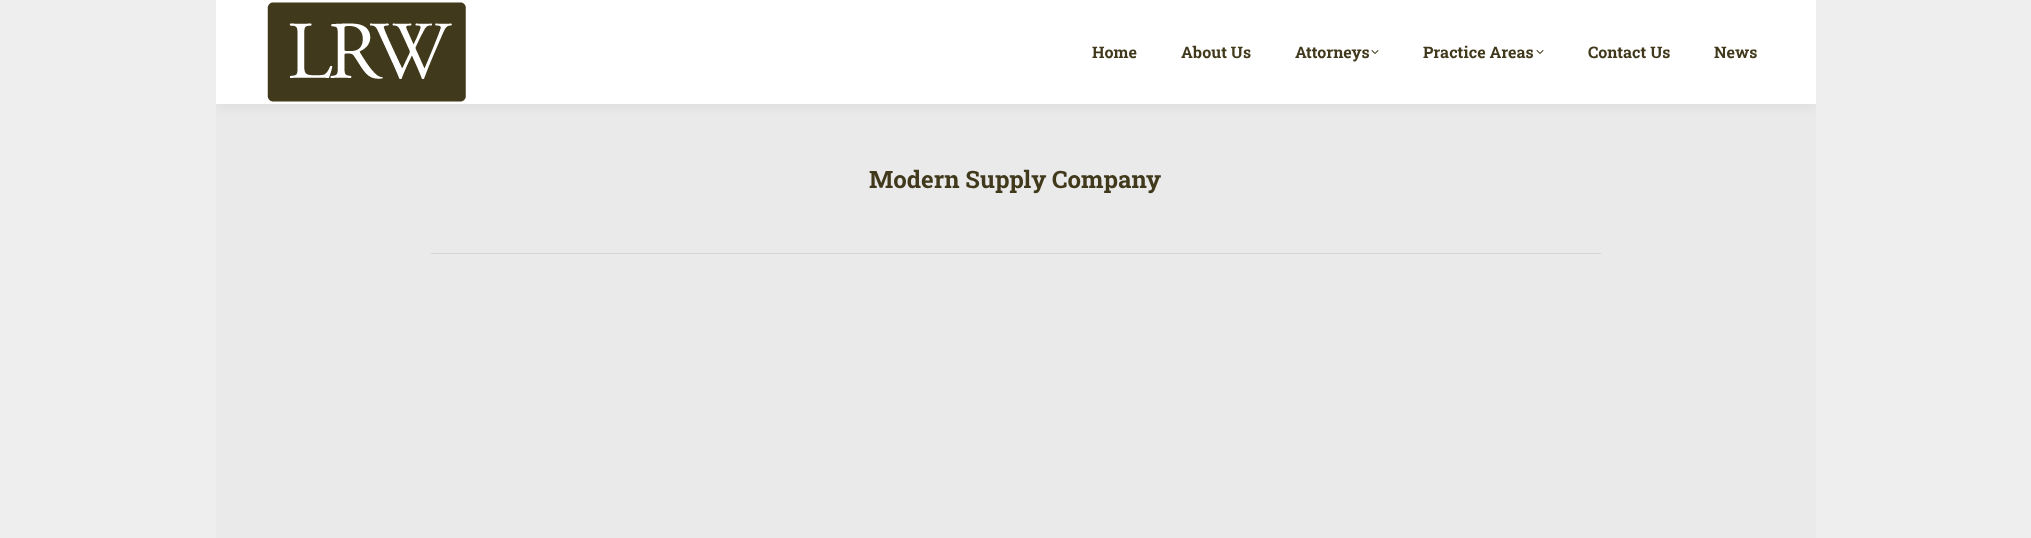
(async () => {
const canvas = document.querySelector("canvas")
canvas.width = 2031
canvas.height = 538
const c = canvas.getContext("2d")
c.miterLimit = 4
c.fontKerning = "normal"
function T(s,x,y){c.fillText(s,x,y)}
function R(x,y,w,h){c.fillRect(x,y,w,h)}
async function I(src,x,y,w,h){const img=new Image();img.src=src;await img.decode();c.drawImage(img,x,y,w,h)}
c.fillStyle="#eee"
R(0,0,2031,538)
c.fillStyle="#eaeaea"
R(216,104,1600,434)
c.save()
c.beginPath()
c.rect(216,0,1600,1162)
c.clip()
c.fillStyle="#00000012"
c.filter="blur(7.5px)"
c.beginPath()
c.rect(215,-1,1602,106)
c.fill()
c.filter="none"
c.restore()
c.fillStyle="#fff"
R(216,0,1600,104)
await I("1.png",267,2,199,100)
c.font="bold 16px Roboto Slab"
c.fillStyle="#41391b"
T("Home",1092,58)
T("About Us",1181,58)
T("Attorneys",1295,58)
await I("2.png",1371,50,8,4)
T("Practice Areas",1423,58)
await I("2.png",1536,50,8,4)
T("Contact Us",1588,58)
T("News",1714,58)
c.font="bold 24px Roboto Slab"
T("Modern Supply Company",869,188)
c.fillStyle="#d6d6d6"
R(431,253,1170,1)
})()
